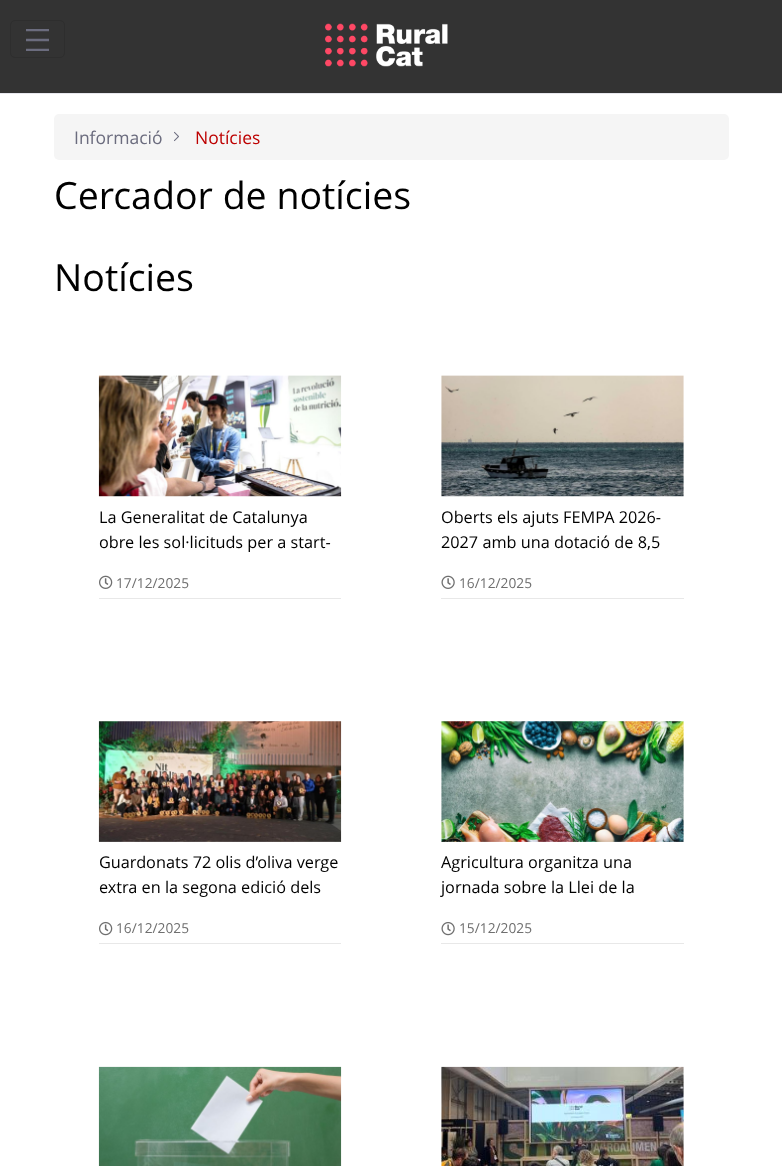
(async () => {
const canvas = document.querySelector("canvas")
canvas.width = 782
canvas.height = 1166
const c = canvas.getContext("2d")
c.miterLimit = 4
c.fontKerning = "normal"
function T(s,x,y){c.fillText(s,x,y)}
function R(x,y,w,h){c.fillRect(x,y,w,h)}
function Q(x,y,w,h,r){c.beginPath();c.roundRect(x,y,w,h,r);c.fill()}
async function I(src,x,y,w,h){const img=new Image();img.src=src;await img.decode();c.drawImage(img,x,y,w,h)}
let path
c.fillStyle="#fff"
R(0,0,782,1166)
c.fillStyle="#333"
R(0,0,782,93)
c.fillStyle="#e7e7ed"
R(0,93,782,1)
c.beginPath()
c.roundRect(10.5,20.5,54,37,4.5)
c.strokeStyle="#2e2e2e"
c.stroke()
c.save()
c.beginPath()
c.rect(26,29,23,22)
c.clip()
path = new Path2D("M24 30h27m-27 10h27m-27 10h27")
c.strokeStyle="#6b6c7e"
c.lineWidth=2.5
c.lineCap="round"
c.stroke(path)
c.restore()
await I("1.png",325,23,123,44)
c.fillStyle="#f5f5f5"
Q(54,114,675,46,5)
c.font="17.5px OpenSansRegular"
c.fillStyle="#6b6c7e"
T("Informació",74,144)
await I("2.png",174,131,5,11)
c.fillStyle="#bd0000"
T("Notícies",195,144)
c.font="37.5px OpenSansRegular"
c.fillStyle="#000"
T("Cercador de notícies",54,209)
T("Notícies",54,291)
await I("3.png",98,375,244,122)
c.font="16.25px OpenSansRegular"
T("La Generalitat de Catalunya",99,523)
T("obre les sol·licituds per a start-",99,548)
c.fillStyle="#e8e8e8"
R(99,598,242,1)
await I("4.png",99,575,14,14)
c.font="13.75px OpenSansRegular"
c.fillStyle="#6f6f6f"
T("17/12/2025",116,588)
await I("5.png",441,375,243,122)
c.font="16.25px OpenSansRegular"
c.fillStyle="#000"
T("Oberts els ajuts FEMPA 2026-",441,523)
T("2027 amb una dotació de 8,5",441,548)
c.fillStyle="#e8e8e8"
R(441,598,243,1)
await I("6.png",441,575,14,14)
c.font="13.75px OpenSansRegular"
c.fillStyle="#6f6f6f"
T("16/12/2025",459,588)
await I("7.png",98,721,244,121)
c.font="16.25px OpenSansRegular"
c.fillStyle="#000"
T("Guardonats 72 olis d’oliva verge",99,868)
T("extra en la segona edició dels",99,893)
c.fillStyle="#e8e8e8"
R(99,943,242,1)
await I("8.png",99,921,14,15)
c.font="13.75px OpenSansRegular"
c.fillStyle="#6f6f6f"
T("16/12/2025",116,933)
await I("9.png",441,721,243,121)
c.font="16.25px OpenSansRegular"
c.fillStyle="#000"
T("Agricultura organitza una",441,868)
T("jornada sobre la Llei de la",441,893)
c.fillStyle="#e8e8e8"
R(441,943,243,1)
await I("10.png",441,922,14,14)
c.font="13.75px OpenSansRegular"
c.fillStyle="#6f6f6f"
T("15/12/2025",459,933)
await I("11.png",98,1066,244,100)
await I("12.png",441,1066,243,100)
})()
